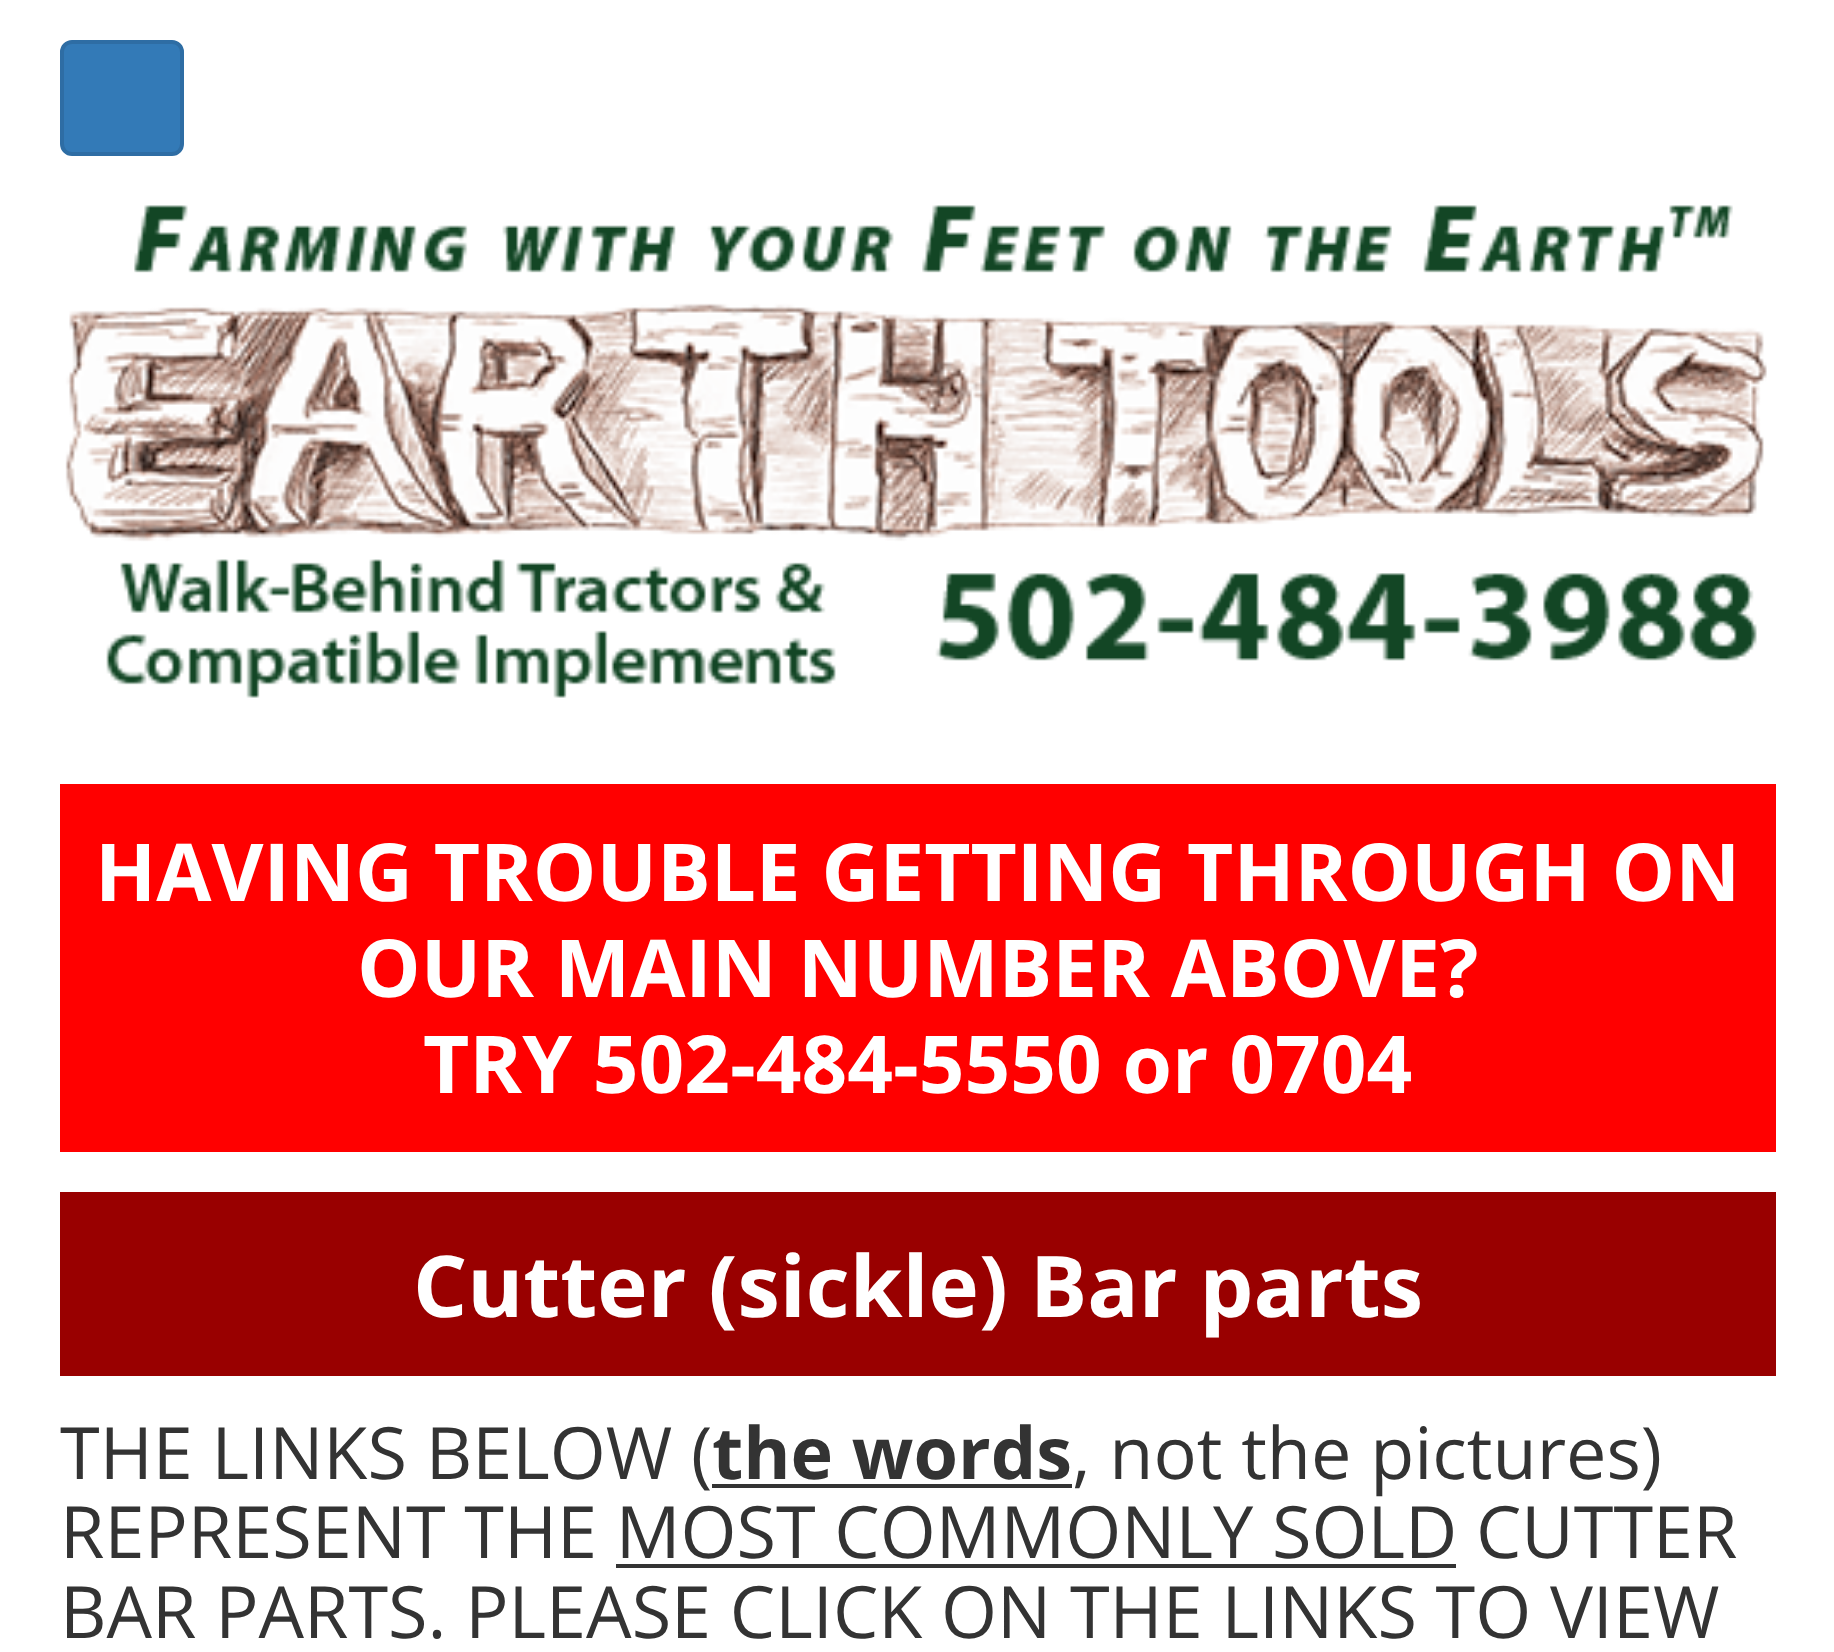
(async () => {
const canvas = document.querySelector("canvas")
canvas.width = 1834
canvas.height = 1652
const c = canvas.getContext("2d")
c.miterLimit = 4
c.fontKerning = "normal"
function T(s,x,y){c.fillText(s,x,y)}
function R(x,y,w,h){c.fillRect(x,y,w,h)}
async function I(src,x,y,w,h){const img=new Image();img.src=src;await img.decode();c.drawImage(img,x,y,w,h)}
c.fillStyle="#fff"
R(0,0,1834,1652)
c.fillStyle="#337ab7"
c.beginPath()
c.roundRect(62,42,120,112,10)
c.fill()
c.strokeStyle="#2e6da4"
c.lineWidth=4
c.stroke()
await I("1.png",65,205,1702,493)
c.fillStyle="#f00"
R(60,784,1716,368)
c.font="bold 80px Open Sans"
c.fillStyle="#fff"
T("HAVING TROUBLE GETTING THROUGH ON",95,901)
T("OUR MAIN NUMBER ABOVE?",357,997)
T("TRY 502-484-5550 or 0704",423,1093)
c.fillStyle="#900"
R(60,1192,1716,184)
c.font="bold 85.25px Open Sans"
c.fillStyle="#fff"
T("Cutter (sickle) Bar parts",413,1317)
c.font="72px Open Sans"
c.fillStyle="#333"
T("THE LINKS BELOW (",60,1479)
c.font="bold 72px Open Sans"
T("the words",712,1479)
R(712,1484,360,4)
c.font="72px Open Sans"
T(", not the pictures)",1072,1479)
T("REPRESENT THE MOST COMMONLY SOLD CUTTER",60,1558)
R(616,1564,840,4)
T("BAR PARTS. PLEASE CLICK ON THE LINKS TO VIEW",60,1638)
})()
